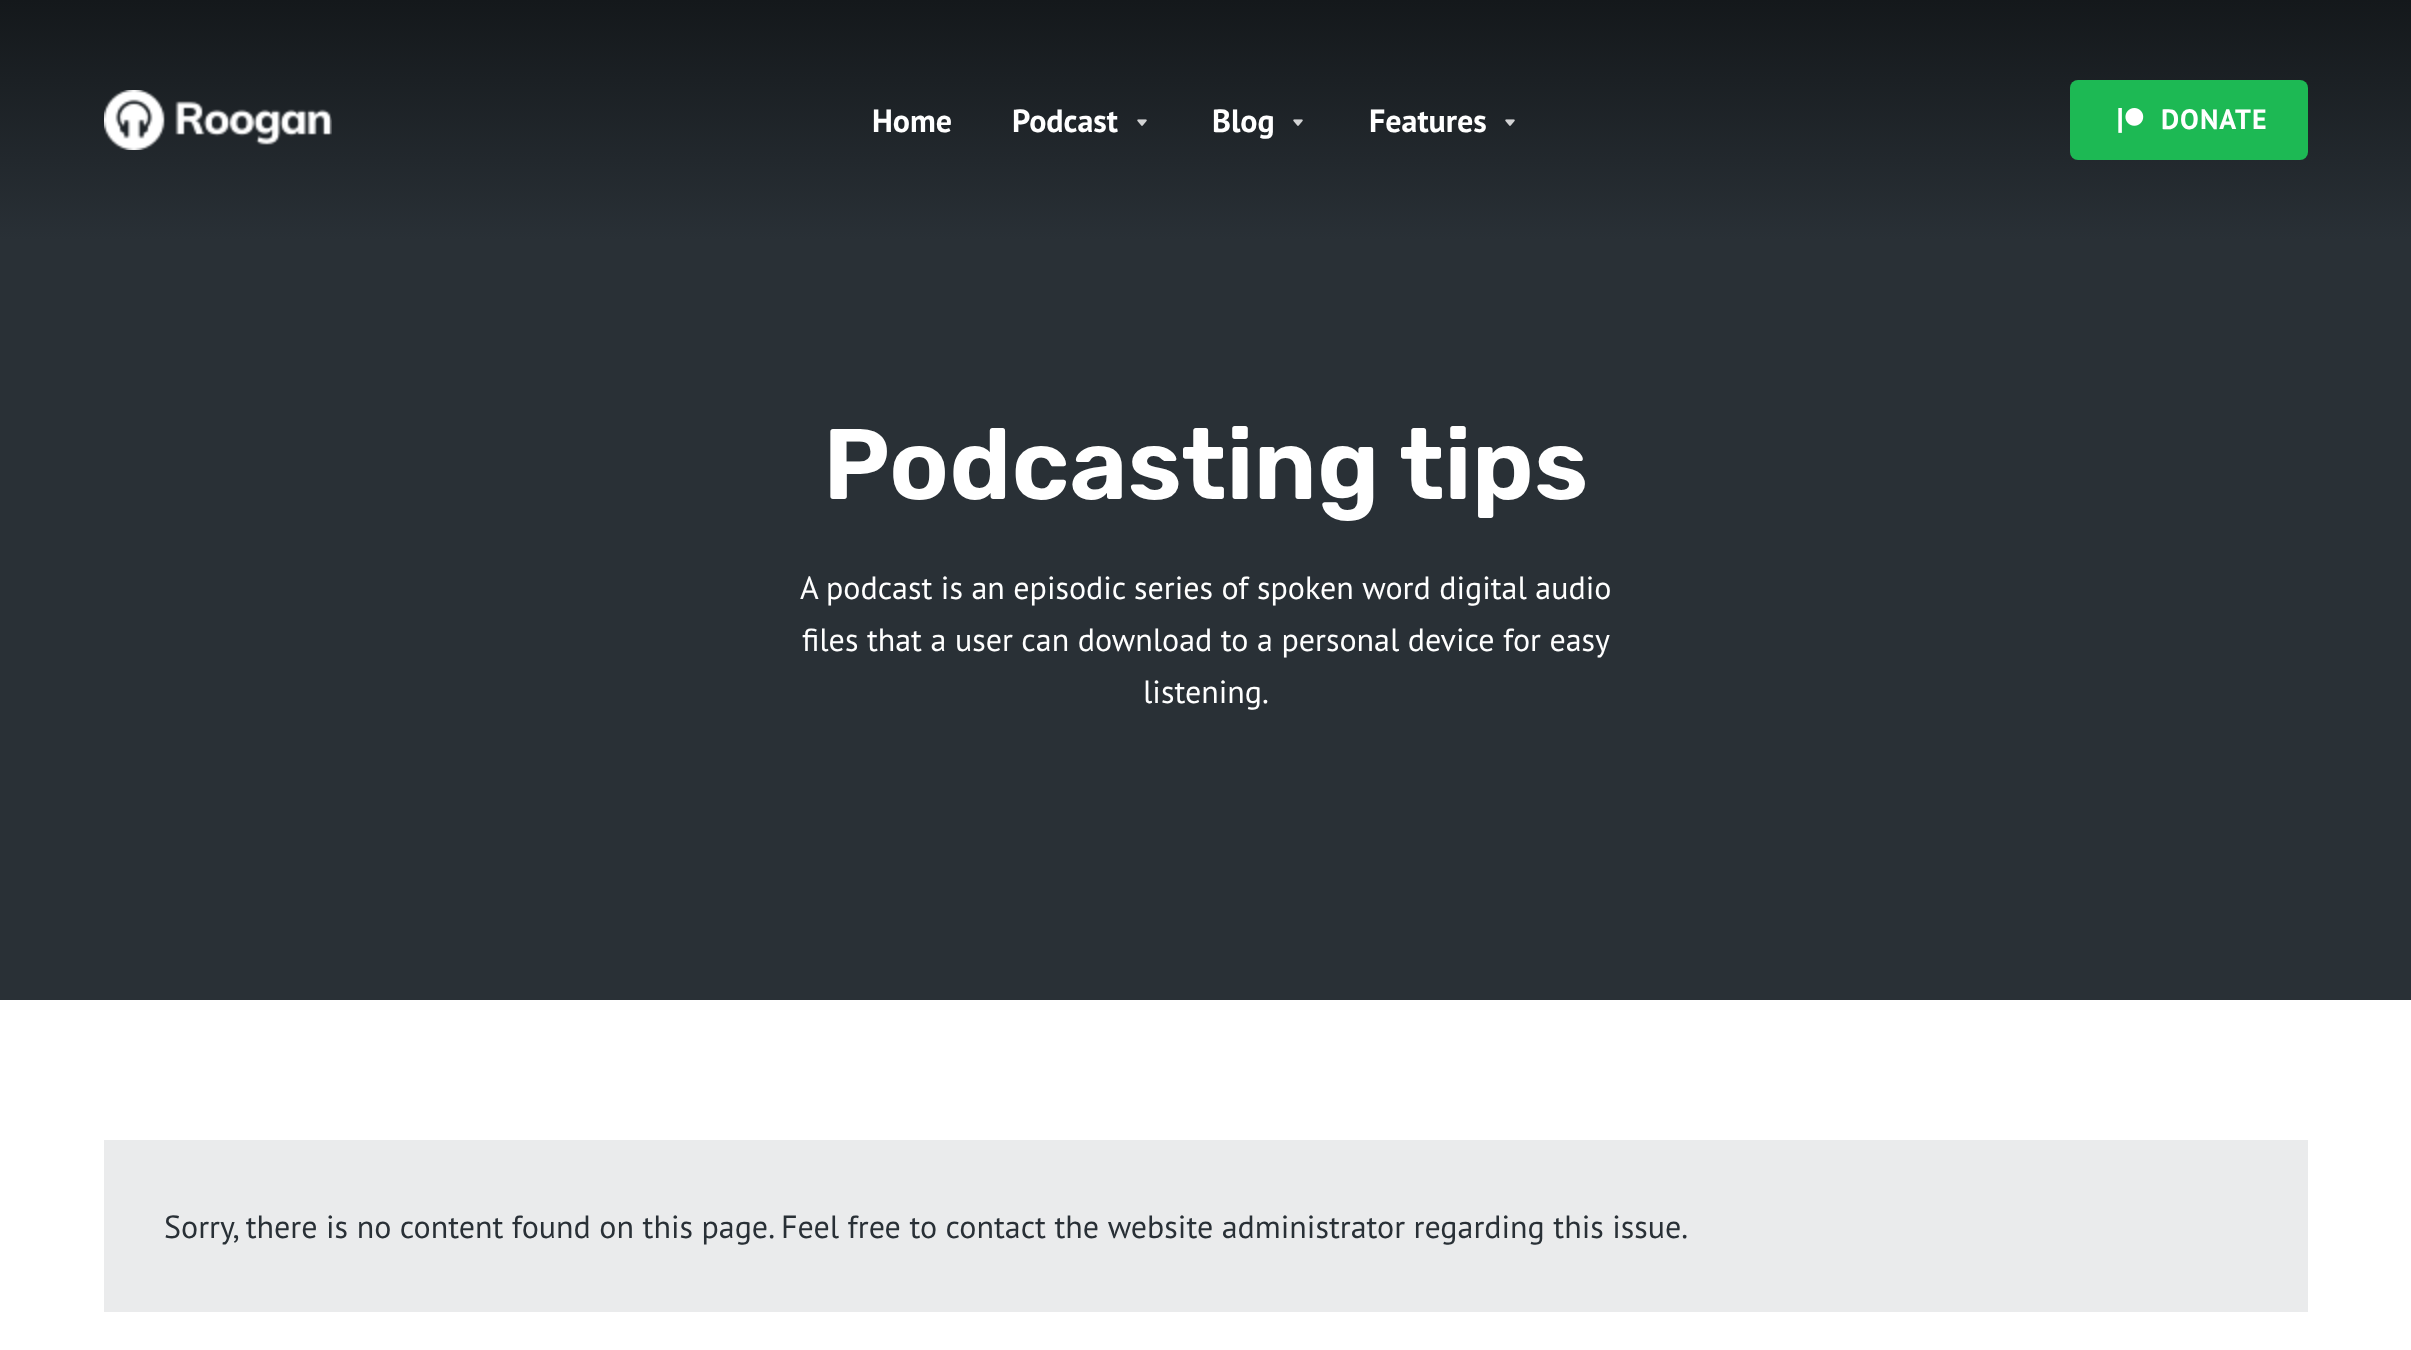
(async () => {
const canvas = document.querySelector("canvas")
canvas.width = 2411
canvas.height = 1350
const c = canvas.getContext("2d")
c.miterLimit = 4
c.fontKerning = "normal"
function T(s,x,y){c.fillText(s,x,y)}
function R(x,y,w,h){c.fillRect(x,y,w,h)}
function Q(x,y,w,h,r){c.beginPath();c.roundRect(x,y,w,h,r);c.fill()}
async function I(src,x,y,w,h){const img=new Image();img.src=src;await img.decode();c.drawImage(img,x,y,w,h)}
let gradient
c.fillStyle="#fff"
R(0,0,2411,1350)
gradient = c.createLinearGradient(1206,0,1206,240)
gradient.addColorStop(0,"#14181b")
gradient.addColorStop(1,"#293036")
c.fillStyle = gradient
R(0,0,2411,240)
await I("1.png",104,90,228,60)
c.font="bold 32px PT Sans"
c.fillStyle="#fff"
T("Home",872,132)
T("Podcast",1012,132)
await I("2.png",1137,119,10,7)
T("Blog",1212,132)
await I("2.png",1293,119,10,7)
T("Features",1369,132)
await I("2.png",1505,119,10,7)
c.fillStyle="#1db954"
Q(2070,80,238,80,8)
await I("3.png",2118,108,26,25)
c.letterSpacing="1px"
c.font="bold 28px PT Sans"
c.fillStyle="#fff"
T("DONATE",2161,129)
c.fillStyle="#293036"
R(0,240,2411,760)
c.letterSpacing="0px"
c.font="600 100px Rubik"
c.fillStyle="#fff"
T("Podcasting tips",823,499)
c.font="32px PT Sans"
T("A podcast is an episodic series of spoken word digital audio",800,599)
T("files that a user can download to a personal device for easy",802,651)
T("listening.",1143,703)
c.fillStyle="#eaebec"
R(104,1140,2204,172)
c.fillStyle="#293036"
T("Sorry, there is no content found on this page. Feel free to contact the website administrator regarding this issue.",164,1238)
})()
